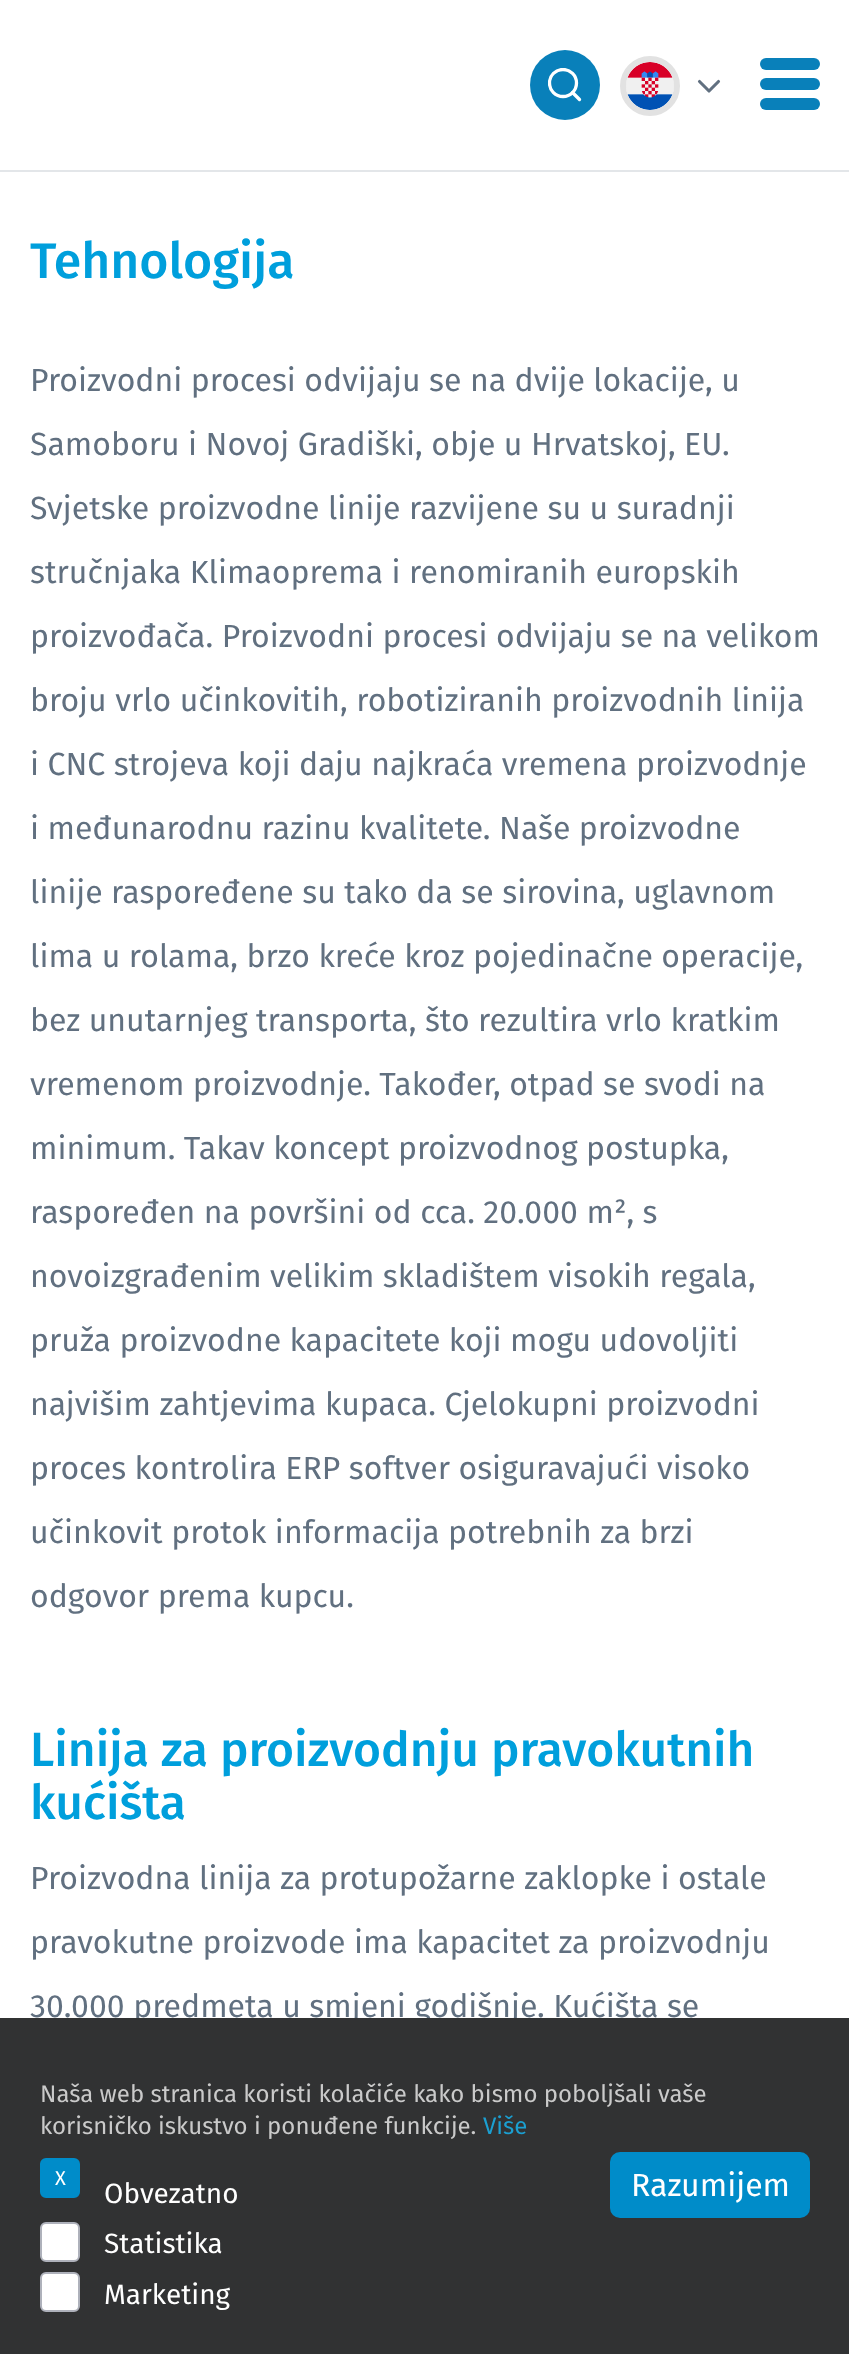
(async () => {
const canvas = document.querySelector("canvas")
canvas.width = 849
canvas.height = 2354
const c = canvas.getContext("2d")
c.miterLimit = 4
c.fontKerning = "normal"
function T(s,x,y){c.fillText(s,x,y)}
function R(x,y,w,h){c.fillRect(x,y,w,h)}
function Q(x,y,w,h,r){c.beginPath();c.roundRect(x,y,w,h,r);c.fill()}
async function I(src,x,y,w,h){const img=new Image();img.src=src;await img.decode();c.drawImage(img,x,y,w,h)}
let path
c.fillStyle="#fff"
R(0,0,849,2354)
c.fillStyle="#e3e6e9"
R(0,170,849,2)
c.fillStyle="#0980ba"
c.beginPath()
c.arc(565,85,35,0,7)
c.fill()
c.save()
c.beginPath()
c.rect(548,68,34,34)
c.clip()
c.beginPath()
c.arc(563,83,13.5,0,7)
c.strokeStyle="#fff"
c.lineWidth=3.3
c.stroke()
c.restore()
path = new Path2D("M579.5 99.5l-7-7")
c.strokeStyle="#fff"
c.lineWidth=3.3
c.lineCap="round"
c.lineJoin="round"
c.stroke(path)
await I("1.png",626,62,48,48)
c.beginPath()
c.arc(650,86,27,0,7)
c.strokeStyle="#e2e2e2"
c.lineWidth=6
c.stroke()
path = new Path2D("M699.5 81.5l9.5 9.5l9.5-9.5")
c.strokeStyle="#617080"
c.lineWidth=3.1
c.stroke(path)
Q(760,58,60,12,6)
Q(760,78,60,12,6)
Q(760,98,60,12,6)
c.font="500 50px Fira Sans"
c.fillStyle="#009fdc"
T("Tehnologija",30,278)
c.font="32px Fira Sans"
c.fillStyle="#617080"
T("Proizvodni procesi odvijaju se na dvije lokacije, u",30,391)
T("Samoboru i Novoj Gradiški, obje u Hrvatskoj, EU.",30,455)
T("Svjetske proizvodne linije razvijene su u suradnji",30,519)
T("stručnjaka Klimaoprema i renomiranih europskih",30,583)
T("proizvođača. Proizvodni procesi odvijaju se na velikom",30,647)
T("broju vrlo učinkovitih, robotiziranih proizvodnih linija",30,711)
T("i CNC strojeva koji daju najkraća vremena proizvodnje",30,775)
T("i međunarodnu razinu kvalitete. Naše proizvodne",30,839)
T("linije raspoređene su tako da se sirovina, uglavnom",30,903)
T("lima u rolama, brzo kreće kroz pojedinačne operacije,",30,967)
T("bez unutarnjeg transporta, što rezultira vrlo kratkim",30,1031)
T("vremenom proizvodnje. Također, otpad se svodi na",30,1095)
T("minimum. Takav koncept proizvodnog postupka,",30,1159)
T("raspoređen na površini od cca. 20.000 m², s",30,1223)
T("novoizgrađenim velikim skladištem visokih regala,",30,1287)
T("pruža proizvodne kapacitete koji mogu udovoljiti",30,1351)
T("najvišim zahtjevima kupaca. Cjelokupni proizvodni",30,1415)
T("proces kontrolira ERP softver osiguravajući visoko",30,1479)
T("učinkovit protok informacija potrebnih za brzi",30,1543)
T("odgovor prema kupcu.",30,1607)
c.font="500 48px Fira Sans"
c.fillStyle="#009fdc"
T("Linija za proizvodnju pravokutnih",30,1766)
T("kućišta",30,1819)
c.font="32px Fira Sans"
c.fillStyle="#617080"
T("Proizvodna linija za protupožarne zaklopke i ostale",30,1889)
T("pravokutne proizvode ima kapacitet za proizvodnju",30,1953)
T("30.000 predmeta u smjeni godišnje. Kućišta se",30,2017)
c.fillStyle="#313233"
R(0,2018,849,336)
c.font="24px Fira Sans"
c.fillStyle="#cacaca"
T("Naša web stranica koristi kolačiće kako bismo poboljšali vaše",40,2102)
T("korisničko iskustvo i ponuđene funkcije.",40,2134)
c.fillStyle="#1b9fd1"
T("Više",483,2134)
c.fillStyle="#008cc9"
c.beginPath()
c.roundRect(41,2159,38,38,5)
c.fill()
c.strokeStyle="#008cc9"
c.lineWidth=2
c.lineJoin="miter"
c.stroke()
c.font="20px Fira Sans"
c.fillStyle="#fff"
T("X",55,2185)
c.font="28px Fira Sans"
T("Obvezatno",104,2203)
c.beginPath()
c.roundRect(41,2223,38,38,5)
c.fill()
c.strokeStyle="#aeb1bb"
c.stroke()
T("Statistika",104,2253)
c.beginPath()
c.roundRect(41,2273,38,38,5)
c.fill()
c.stroke()
T("Marketing",104,2304)
c.fillStyle="#008cc9"
Q(610,2152,200,66,10)
c.font="32px Fira Sans"
c.fillStyle="#fff"
T("Razumijem",631,2196)
})()
